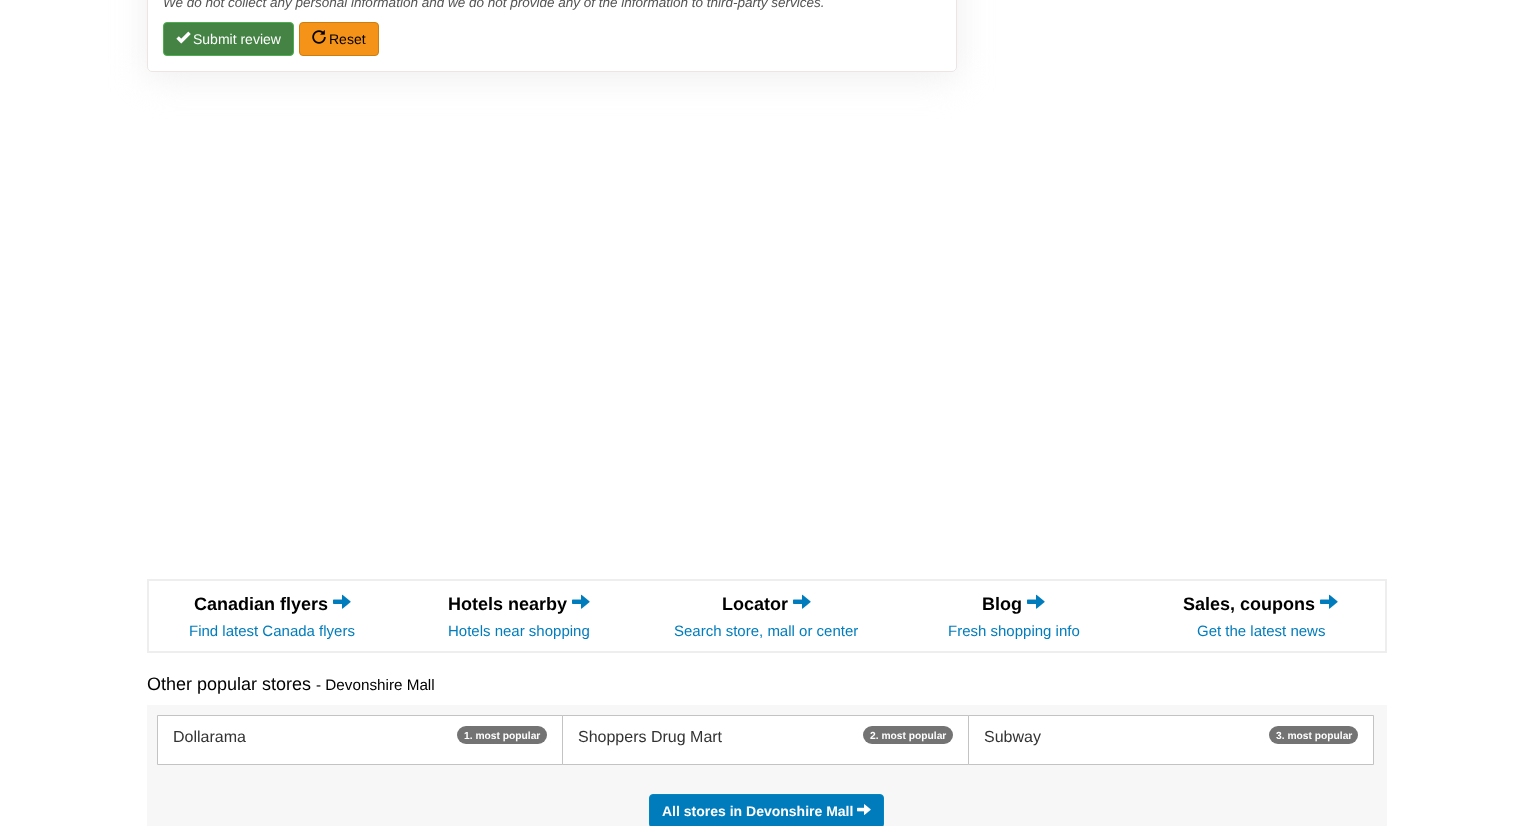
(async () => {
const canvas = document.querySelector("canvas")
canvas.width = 1533
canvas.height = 826
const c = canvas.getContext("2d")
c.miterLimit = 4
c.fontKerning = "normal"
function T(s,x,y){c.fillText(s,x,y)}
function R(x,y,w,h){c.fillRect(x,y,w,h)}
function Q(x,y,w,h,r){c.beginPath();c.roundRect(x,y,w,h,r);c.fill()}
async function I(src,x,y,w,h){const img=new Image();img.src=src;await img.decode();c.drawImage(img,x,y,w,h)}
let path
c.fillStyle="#fff"
R(0,0,1533,826)
c.save()
path = new Path2D("M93 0h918v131h-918zm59-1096h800c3 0 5 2 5 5v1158c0 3-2 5-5 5h-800c-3 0-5-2-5-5v-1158c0-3 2-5 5-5z")
c.clip(path,"evenodd")
c.fillStyle="#eee"
c.filter="blur(17.5px)"
c.beginPath()
c.roundRect(147,-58,810,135,5)
c.fill()
c.filter="none"
c.restore()
c.beginPath()
c.roundRect(147.5,-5.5,809,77,4.5)
c.strokeStyle="#ede5e4"
c.stroke()
c.font="italic 13.5px Liberation Sans"
c.fillStyle="#535353"
T("We do not collect any personal information and we do not provide any of the information to third-party services.",163,7)
c.fillStyle="#448344"
c.beginPath()
c.roundRect(163.5,22.5,130,33,3.5)
c.fill()
c.strokeStyle="#4cae4c"
c.stroke()
await I("1.png",176,31,15,13)
c.font="14px Liberation Sans"
c.fillStyle="#fff"
T("Submit review",193,44)
c.fillStyle="#f59218"
c.beginPath()
c.roundRect(299.5,22.5,79,33,3.5)
c.fill()
c.strokeStyle="#cb7f10"
c.stroke()
await I("2.png",312,30,14,14)
c.fillStyle="#000"
T("Reset",329,44)
c.strokeStyle="#eee"
c.lineWidth=2
c.strokeRect(148,580,1238,72)
c.font="bold 18px Liberation Sans"
T("Canadian flyers",194,610)
await I("3.png",333,594,18,15)
c.font="15px Liberation Sans"
c.fillStyle="#007cbd"
T("Find latest Canada flyers",189,636)
c.font="bold 18px Liberation Sans"
c.fillStyle="#000"
T("Hotels nearby",448,610)
await I("3.png",572,594,18,15)
c.font="15px Liberation Sans"
c.fillStyle="#007cbd"
T("Hotels near shopping",448,636)
c.font="bold 18px Liberation Sans"
c.fillStyle="#000"
T("Locator",722,610)
await I("3.png",793,594,18,15)
c.font="15px Liberation Sans"
c.fillStyle="#007cbd"
T("Search store, mall or center",674,636)
c.font="bold 18px Liberation Sans"
c.fillStyle="#000"
T("Blog",982,610)
await I("3.png",1027,594,18,15)
c.font="15px Liberation Sans"
c.fillStyle="#007cbd"
T("Fresh shopping info",948,636)
c.font="bold 18px Liberation Sans"
c.fillStyle="#000"
T("Sales, coupons",1183,610)
await I("3.png",1320,594,18,15)
c.font="15px Liberation Sans"
c.fillStyle="#007cbd"
T("Get the latest news",1197,636)
c.font="18px Liberation Sans"
c.fillStyle="#000"
T("Other popular stores",147,690)
c.font="15.25px Liberation Sans"
T("- Devonshire Mall",316,690)
c.fillStyle="#f7f7f7"
R(147,705,1240,121)
c.fillStyle="#fff"
c.beginPath()
c.rect(157.5,715.5,405,49)
c.fill()
c.strokeStyle="#c3c3c3"
c.lineWidth=1
c.stroke()
c.font="16px Liberation Sans"
c.fillStyle="#333"
T("Dollarama",173,742)
c.fillStyle="#737373"
Q(457,726,90,18,9)
c.font="bold 10.25px Liberation Sans"
c.fillStyle="#fff"
T("1. most popular",464,739)
c.beginPath()
c.rect(562.5,715.5,406,49)
c.fill()
c.stroke()
c.font="16px Liberation Sans"
c.fillStyle="#333"
T("Shoppers Drug Mart",578,742)
c.fillStyle="#737373"
Q(863,726,90,18,9)
c.font="bold 10.25px Liberation Sans"
c.fillStyle="#fff"
T("2. most popular",870,739)
c.beginPath()
c.rect(968.5,715.5,405,49)
c.fill()
c.stroke()
c.font="16px Liberation Sans"
c.fillStyle="#333"
T("Subway",984,742)
c.fillStyle="#737373"
Q(1269,726,89,18,9)
c.font="bold 10.25px Liberation Sans"
c.fillStyle="#fff"
T("3. most popular",1276,739)
c.fillStyle="#007cbd"
c.beginPath()
c.roundRect(649.5,794.5,234,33,3.5)
c.fill()
c.strokeStyle="#0087c2"
c.stroke()
c.font="bold 14px Liberation Sans"
c.fillStyle="#fff"
T("All stores in Devonshire Mall",662,816)
await I("4.png",857,804,14,11)
})()
